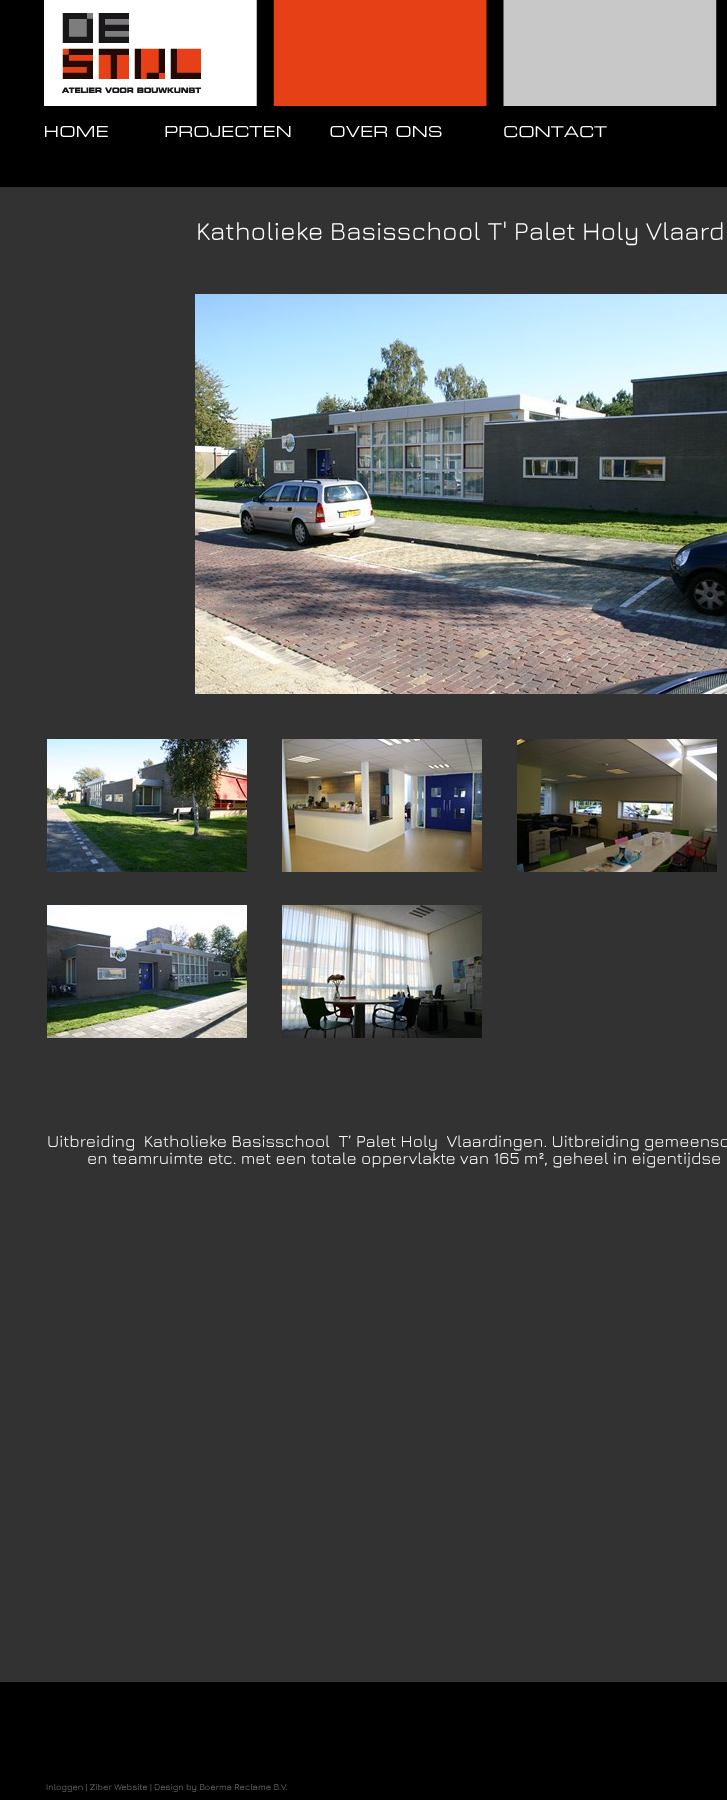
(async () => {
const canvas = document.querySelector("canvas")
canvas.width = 727
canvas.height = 1800
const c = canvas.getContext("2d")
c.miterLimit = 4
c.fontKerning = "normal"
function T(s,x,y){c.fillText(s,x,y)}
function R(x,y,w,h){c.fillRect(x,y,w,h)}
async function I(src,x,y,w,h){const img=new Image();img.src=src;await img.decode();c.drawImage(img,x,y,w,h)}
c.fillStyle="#000"
R(0,0,727,1800)
c.fillStyle="#323232"
R(0,187,727,1495)
await I("1.png",44,0,673,106)
await I("2.png",45,126,63,11)
await I("3.png",165,126,126,11)
await I("4.png",330,126,112,11)
await I("5.png",504,126,103,12)
c.font="26px Jura"
c.fillStyle="#fff"
T("Katholieke Basisschool T' Palet Holy Vlaard",196,240)
await I("6.png",195,294,532,400)
await I("7.png",47,739,200,133)
await I("8.png",47,905,200,133)
await I("9.png",282,739,200,133)
await I("10.png",282,905,200,133)
await I("11.png",517,739,200,133)
c.font="17px Jura"
T("Uitbreiding  Katholieke Basisschool  T’ Palet Holy  Vlaardingen. Uitbreiding gemeensc",47,1147)
T("en teamruimte etc. met een totale oppervlakte van 165 m², geheel in eigentijdse",87,1164)
c.font="9px Jura"
c.fillStyle="#808080"
T("Inloggen | Ziber Website | Design by Boerma Reclame B.V.",46,1790)
})()
